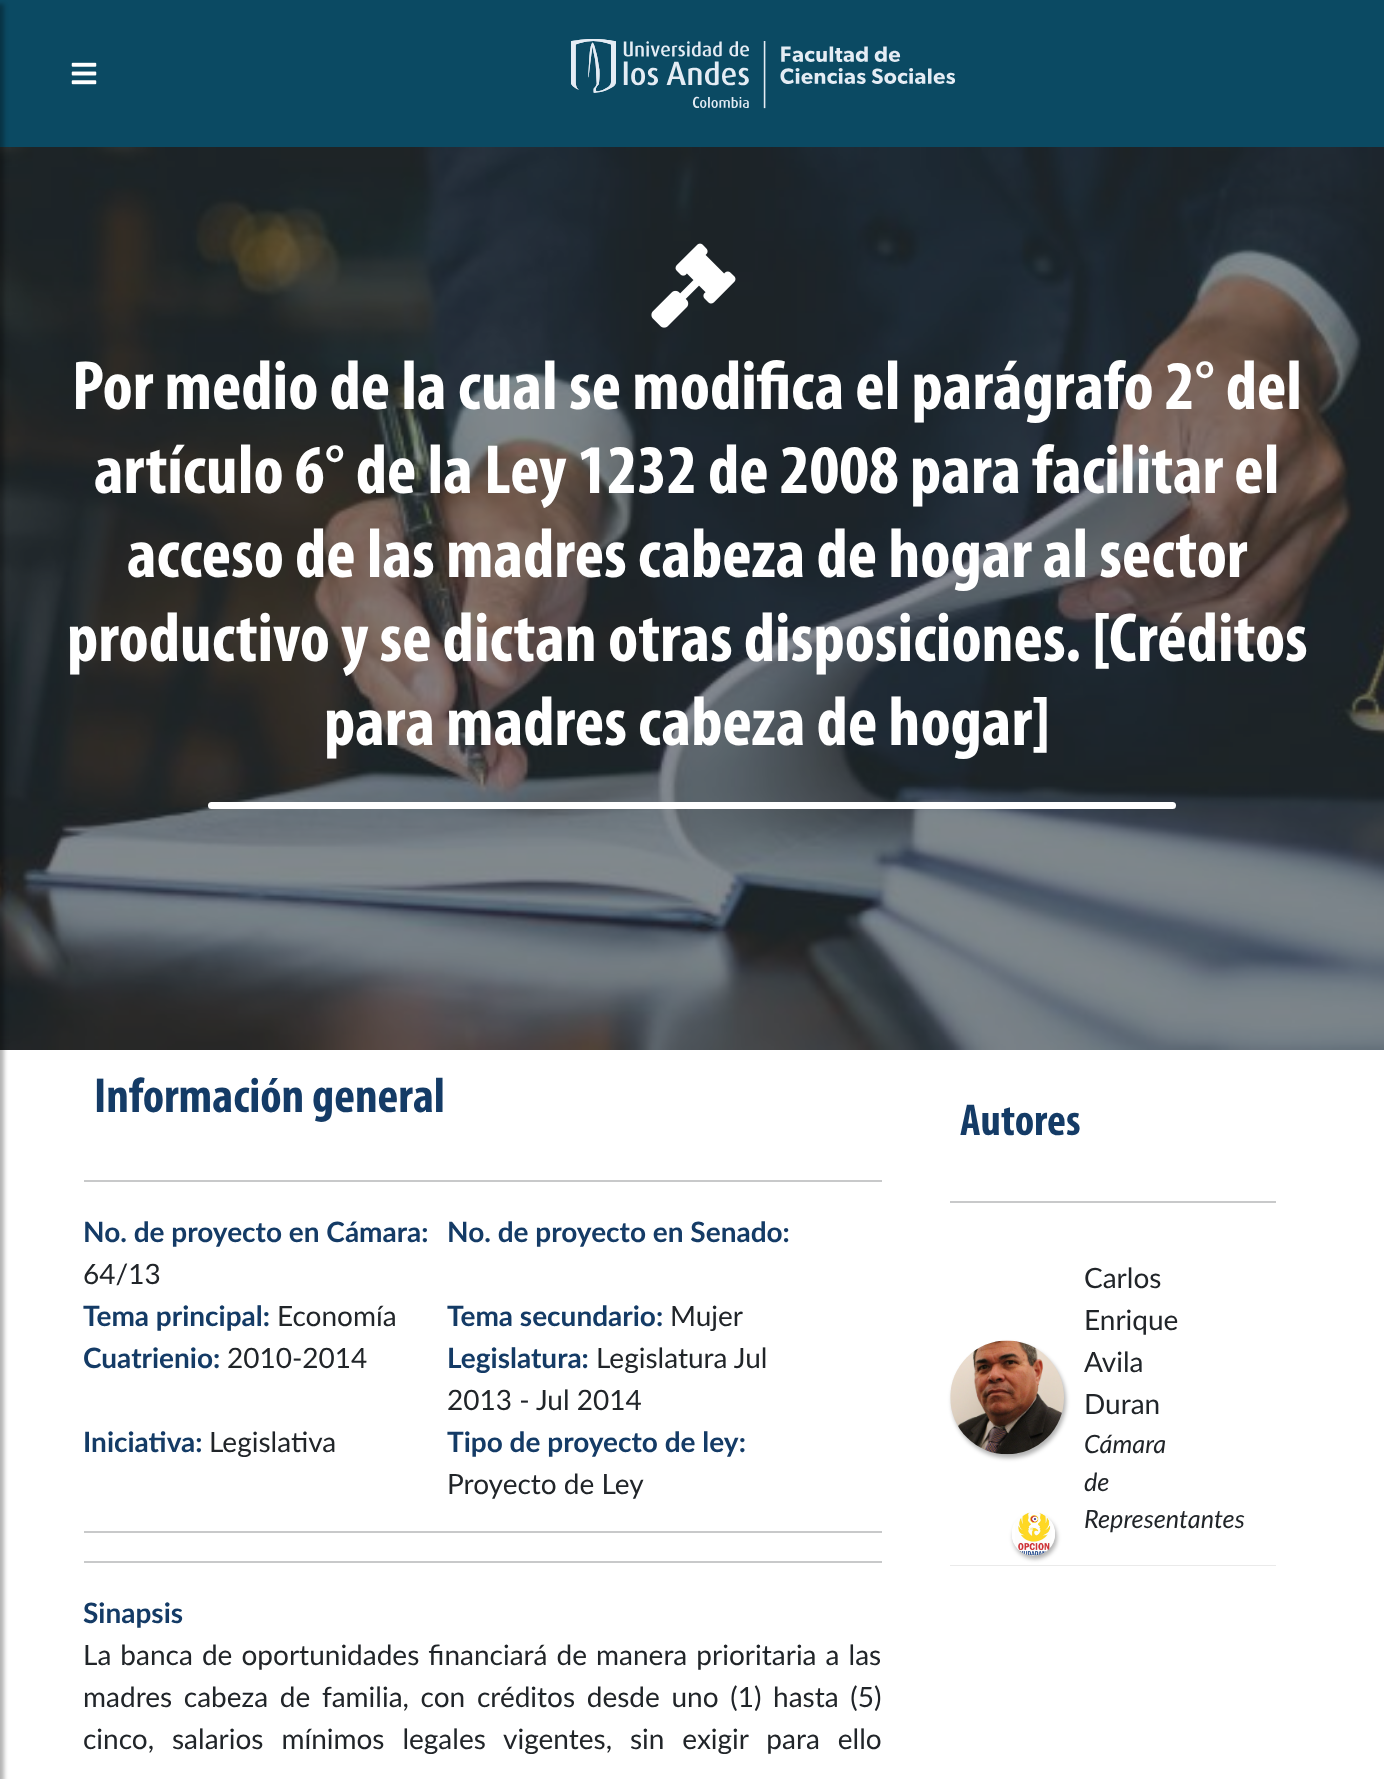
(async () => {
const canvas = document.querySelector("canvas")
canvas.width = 1384
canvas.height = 1779
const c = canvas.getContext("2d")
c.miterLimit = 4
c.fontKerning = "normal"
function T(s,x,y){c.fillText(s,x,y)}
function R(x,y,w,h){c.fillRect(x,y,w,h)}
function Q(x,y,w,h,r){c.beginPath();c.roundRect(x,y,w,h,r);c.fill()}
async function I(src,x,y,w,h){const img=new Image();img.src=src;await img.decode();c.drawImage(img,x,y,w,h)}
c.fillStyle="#fff"
R(0,0,1384,1779)
c.fillStyle="#0b4a63"
R(0,0,1384,147)
await I("3.png",0,147,1384,903)
c.fillStyle="#0000004d"
c.filter="blur(2px)"
c.beginPath()
c.rect(-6,4,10,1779)
c.fill()
c.filter="none"
await I("1.png",71,62,26,23)
await I("2.png",571,39,385,70)
await I("4.png",651,243,85,85)
c.font="bold 70px Myriad"
c.fillStyle="#fff"
T("Por medio de la cual se modifica el parágrafo 2° del",72,409)
T("artículo 6° de la Ley 1232 de 2008 para facilitar el",94,493)
T("acceso de las madres cabeza de hogar al sector",127,577)
T("productivo y se dictan otras disposiciones. [Créditos",67,661)
T("para madres cabeza de hogar]",324,745)
Q(208,802,968,7,3.5)
c.font="bold 49.5px Myriad"
c.fillStyle="#143b66"
T("Información general",94,1112)
c.fillStyle="#c8c9ca"
R(84,1180,798,2)
c.font="bold 28px Lato"
c.fillStyle="#143b66"
T("No. de proyecto en Cámara:",83,1242)
c.font="28px Lato"
c.fillStyle="#212529"
T("64/13",83,1284)
c.font="bold 28px Lato"
c.fillStyle="#143b66"
T("No. de proyecto en Senado:",447,1242)
T("Tema principal:",83,1326)
c.font="28px Lato"
c.fillStyle="#212529"
T("Economía",277,1326)
c.font="bold 28px Lato"
c.fillStyle="#143b66"
T("Tema secundario:",447,1326)
c.font="28px Lato"
c.fillStyle="#212529"
T("Mujer",670,1326)
c.font="bold 28px Lato"
c.fillStyle="#143b66"
T("Cuatrienio:",83,1368)
c.font="28px Lato"
c.fillStyle="#212529"
T("2010-2014",227,1368)
c.font="bold 28px Lato"
c.fillStyle="#143b66"
T("Legislatura:",447,1368)
c.font="28px Lato"
c.fillStyle="#212529"
T("Legislatura Jul",596,1368)
T("2013 - Jul 2014",447,1410)
c.font="bold 28px Lato"
c.fillStyle="#143b66"
T("Iniciativa:",83,1452)
c.font="28px Lato"
c.fillStyle="#212529"
T("Legislativa",209,1452)
c.font="bold 28px Lato"
c.fillStyle="#143b66"
T("Tipo de proyecto de ley:",447,1452)
c.font="28px Lato"
c.fillStyle="#212529"
T("Proyecto de Ley",447,1494)
c.fillStyle="#c8c9ca"
R(84,1531,798,2)
R(84,1561,798,2)
c.font="bold 28px Lato"
c.fillStyle="#143b66"
T("Sinapsis",83,1623)
c.wordSpacing="1.9px"
c.font="28px Lato"
c.fillStyle="#212529"
T("La banca de oportunidades financiará de manera prioritaria a las",83,1665)
c.wordSpacing="4.5px"
T("madres cabeza de familia, con créditos desde uno (1) hasta (5)",83,1707)
c.wordSpacing="10.75px"
T("cinco, salarios mínimos legales vigentes, sin exigir para ello",83,1749)
c.wordSpacing="0px"
c.font="bold 45px Myriad"
c.fillStyle="#143b66"
T("Autores",960,1135)
c.fillStyle="#c8c9ca"
R(950,1201,326,2)
c.fillStyle="#eaeaea"
R(950,1565,326,1)
c.fillStyle="#0000004d"
c.filter="blur(2px)"
c.beginPath()
c.roundRect(952,1344,114,114,57)
c.fill()
c.filter="none"
await I("5.png",950,1340,114,115)
c.font="28px Lato"
c.fillStyle="#212529"
T("Carlos",1084,1288)
T("Enrique",1084,1330)
T("Avila",1084,1372)
T("Duran",1084,1414)
c.font="italic 25.25px Lato"
T("Cámara",1084,1453)
T("de",1084,1491)
T("Representantes",1084,1528)
c.fillStyle="#0000004d"
c.filter="blur(2px)"
c.beginPath()
c.roundRect(1013,1516,44,43,21.5)
c.fill()
c.filter="none"
await I("6.png",1012,1512,43,44)
})()
